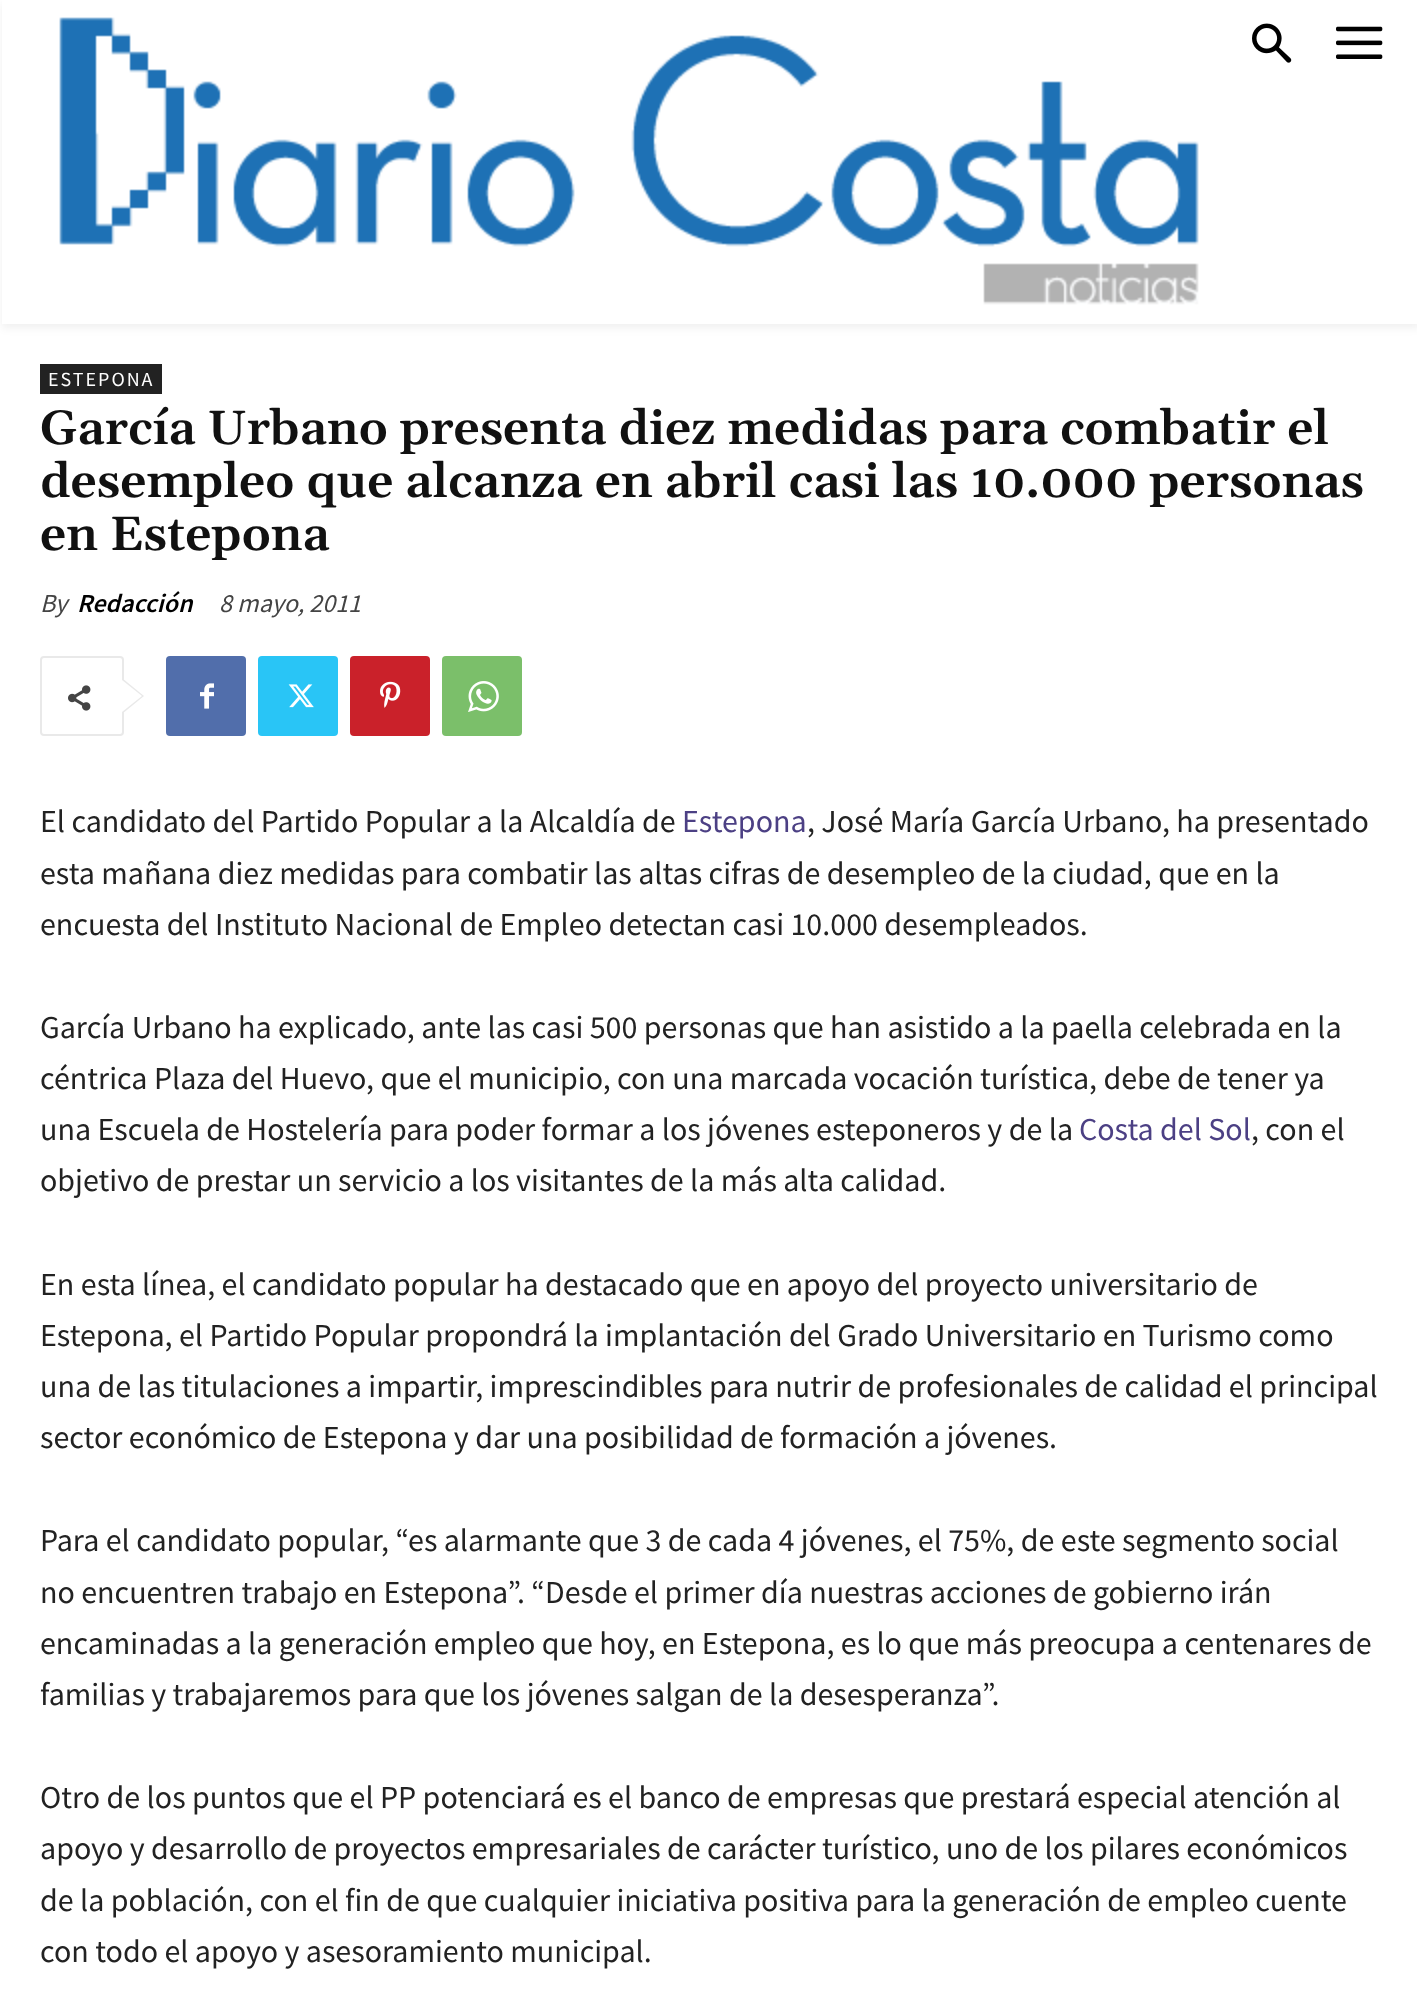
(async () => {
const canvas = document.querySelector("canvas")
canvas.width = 1417
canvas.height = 1991
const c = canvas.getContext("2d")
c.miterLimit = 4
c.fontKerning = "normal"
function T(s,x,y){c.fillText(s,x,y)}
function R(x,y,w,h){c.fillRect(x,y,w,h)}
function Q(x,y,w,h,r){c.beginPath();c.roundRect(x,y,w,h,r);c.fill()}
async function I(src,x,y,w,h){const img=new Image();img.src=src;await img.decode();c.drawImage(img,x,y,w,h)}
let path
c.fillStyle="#fff"
R(0,0,1417,1991)
await I("1.png",59,17,1140,288)
await I("2.png",1252,23,40,40)
await I("3.png",1336,26,47,33)
c.save()
path = new Path2D("M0 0h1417v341h-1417zm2 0h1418v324h-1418z")
c.clip(path,"evenodd")
c.fillStyle="#0000000f"
c.filter="blur(4px)"
c.beginPath()
c.rect(2,4,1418,324)
c.fill()
c.filter="none"
c.restore()
c.fillStyle="#222"
R(40,364,122,30)
c.letterSpacing="2px"
c.font="20px Source Sans Pro"
c.fillStyle="#fff"
T("ESTEPONA",48,386)
c.letterSpacing="0px"
c.font="600 48px Gelasio"
c.fillStyle="#111"
T("García Urbano presenta diez medidas para combatir el",40,444)
T("desempleo que alcanza en abril casi las 10.000 personas",40,497)
T("en Estepona",40,550)
c.font="italic 26px Source Sans Pro"
c.fillStyle="#444"
T("By",40,612)
c.font="italic 600 26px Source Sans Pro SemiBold"
c.fillStyle="#000"
T("Redacción",77,612)
c.font="italic 26px Source Sans Pro"
c.fillStyle="#444"
T("8 mayo, 2011",219,612)
c.beginPath()
c.roundRect(41,657,82,78,3)
c.strokeStyle="#e9e9e9"
c.lineWidth=2
c.stroke()
c.fillStyle="#e9e9e9"
path = new Path2D("M122 714v-36l22 18z")
c.fill(path)
await I("4.png",68,685,23,26)
c.fillStyle="#fff"
path = new Path2D("M122 712v-32l20 16z")
c.fill(path)
c.fillStyle="#516eab"
Q(166,656,80,80,4)
await I("5.png",200,683,14,26)
c.fillStyle="#29c5f6"
Q(258,656,80,80,4)
await I("6.png",288,684,26,24)
c.fillStyle="#ca212a"
Q(350,656,80,80,4)
await I("7.png",380,681,21,27)
c.fillStyle="#7bbf6a"
Q(442,656,80,80,4)
await I("8.png",468,681,31,31)
c.font="32px Source Sans Pro"
c.fillStyle="#222"
T("El candidato del Partido Popular a la Alcaldía de",40,832)
c.fillStyle="#4c4084"
T("Estepona",682,832)
c.fillStyle="#222"
T(", José María García Urbano, ha presentado",807,832)
T("esta mañana diez medidas para combatir las altas cifras de desempleo de la ciudad, que en la",40,884)
T("encuesta del Instituto Nacional de Empleo detectan casi 10.000 desempleados.",40,935)
T("García Urbano ha explicado, ante las casi 500 personas que han asistido a la paella celebrada en la",40,1038)
T("céntrica Plaza del Huevo, que el municipio, con una marcada vocación turística, debe de tener ya",40,1089)
T("una Escuela de Hostelería para poder formar a los jóvenes esteponeros y de la",40,1140)
c.fillStyle="#4c4084"
T("Costa del Sol",1079,1140)
c.fillStyle="#222"
T(", con el",1251,1140)
T("objetivo de prestar un servicio a los visitantes de la más alta calidad.",40,1191)
T("En esta línea, el candidato popular ha destacado que en apoyo del proyecto universitario de",40,1295)
T("Estepona, el Partido Popular propondrá la implantación del Grado Universitario en Turismo como",40,1346)
T("una de las titulaciones a impartir, imprescindibles para nutrir de profesionales de calidad el principal",40,1397)
T("sector económico de Estepona y dar una posibilidad de formación a jóvenes.",40,1448)
T("Para el candidato popular, “es alarmante que 3 de cada 4 jóvenes, el 75%, de este segmento social",40,1551)
T("no encuentren trabajo en Estepona”. “Desde el primer día nuestras acciones de gobierno irán",40,1603)
T("encaminadas a la generación empleo que hoy, en Estepona, es lo que más preocupa a centenares de",40,1654)
T("familias y trabajaremos para que los jóvenes salgan de la desesperanza”.",40,1705)
T("Otro de los puntos que el PP potenciará es el banco de empresas que prestará especial atención al",40,1808)
T("apoyo y desarrollo de proyectos empresariales de carácter turístico, uno de los pilares económicos",40,1859)
T("de la población, con el fin de que cualquier iniciativa positiva para la generación de empleo cuente",40,1911)
T("con todo el apoyo y asesoramiento municipal.",40,1962)
})()
